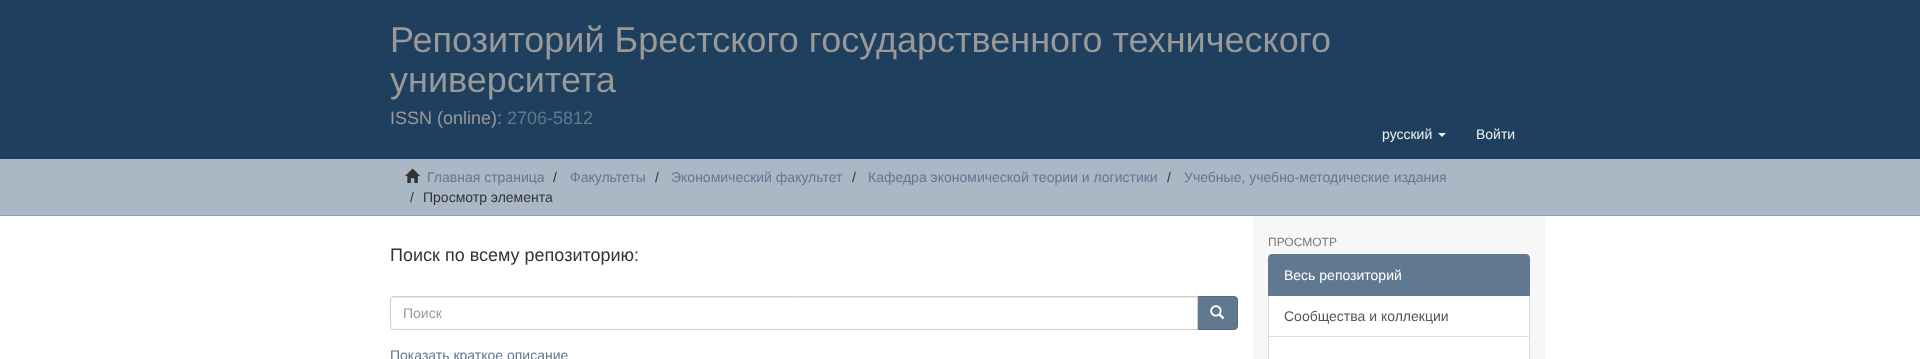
(async () => {
const canvas = document.querySelector("canvas")
canvas.width = 1920
canvas.height = 359
const c = canvas.getContext("2d")
c.miterLimit = 4
c.fontKerning = "normal"
function T(s,x,y){c.fillText(s,x,y)}
function R(x,y,w,h){c.fillRect(x,y,w,h)}
async function I(src,x,y,w,h){const img=new Image();img.src=src;await img.decode();c.drawImage(img,x,y,w,h)}
let path
c.fillStyle="#fff"
R(0,0,1920,359)
c.fillStyle="#1f3f5e"
R(0,0,1920,159)
c.font="36px Liberation Sans"
c.fillStyle="#999"
T("Репозиторий Брестского государственного технического",390,52)
T("университета",390,92)
c.font="18px Liberation Sans"
T("ISSN (online):",390,124)
c.fillStyle="#607890"
T("2706-5812",507,124)
c.font="14px Liberation Sans"
c.fillStyle="#eee"
T("русский",1382,139)
path = new Path2D("M1438 133h8l-4 4z")
c.fill(path)
T("Войти",1476,139)
c.fillStyle="#aab8c6"
R(0,159,1920,56)
c.fillStyle="#8b9eb2"
R(0,215,1920,1)
await I("1.png",405,168,15,15)
c.fillStyle="#607890"
T("Главная страница",427,182)
c.fillStyle="#333"
T("/",553,182)
c.fillStyle="#607890"
T("Факультеты",570,182)
c.fillStyle="#333"
T("/",655,182)
c.fillStyle="#607890"
T("Экономический факультет",671,182)
c.fillStyle="#333"
T("/",852,182)
c.fillStyle="#607890"
T("Кафедра экономической теории и логистики",868,182)
c.fillStyle="#333"
T("/",1167,182)
c.fillStyle="#607890"
T("Учебные, учебно-методические издания",1184,182)
c.fillStyle="#333"
T("/",410,202)
T("Просмотр элемента",423,202)
c.fillStyle="#f7f7f7"
R(1253,216,292,143)
c.font="18px Liberation Sans"
c.fillStyle="#333"
T("Поиск по всему репозиторию:",390,261)
c.fillStyle="#607890"
c.beginPath()
c.roundRect(1197.5,296.5,40,33,[0,3.5,3.5,0])
c.fill()
c.strokeStyle="#566b81"
c.stroke()
c.fillStyle="#fff"
c.beginPath()
c.roundRect(390,296,808,34,[4,0,0,4])
c.fill()
c.fillStyle="#ececec"
path = new Path2D("M394 298h803v-1h-803c-2 0-3 2-3 4c0-2 1-3 3-3z")
c.fill(path)
c.beginPath()
c.roundRect(390.5,296.5,807,33,[3.5,0,0,3.5])
c.strokeStyle="#ccc"
c.stroke()
c.font="14px Liberation Sans"
c.fillStyle="#999"
T("Поиск",403,318)
await I("2.png",1210,305,15,15)
c.fillStyle="#607890"
T("Показать краткое описание",390,360)
c.font="12px Liberation Sans"
c.fillStyle="#777"
T("ПРОСМОТР",1268,246)
c.fillStyle="#fff"
c.beginPath()
c.rect(1268.5,295.5,261,41)
c.fill()
c.strokeStyle="#ddd"
c.stroke()
c.fillStyle="#607890"
c.beginPath()
c.roundRect(1268.5,254.5,261,41,[3.5,3.5,0,0])
c.fill()
c.strokeStyle="#607890"
c.stroke()
c.font="14px Liberation Sans"
c.fillStyle="#fff"
T("Весь репозиторий",1284,280)
c.fillStyle="#555"
T("Сообщества и коллекции",1284,321)
c.fillStyle="#fff"
c.beginPath()
c.rect(1268.5,336.5,261,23)
c.fill()
c.strokeStyle="#ddd"
c.stroke()
})()
